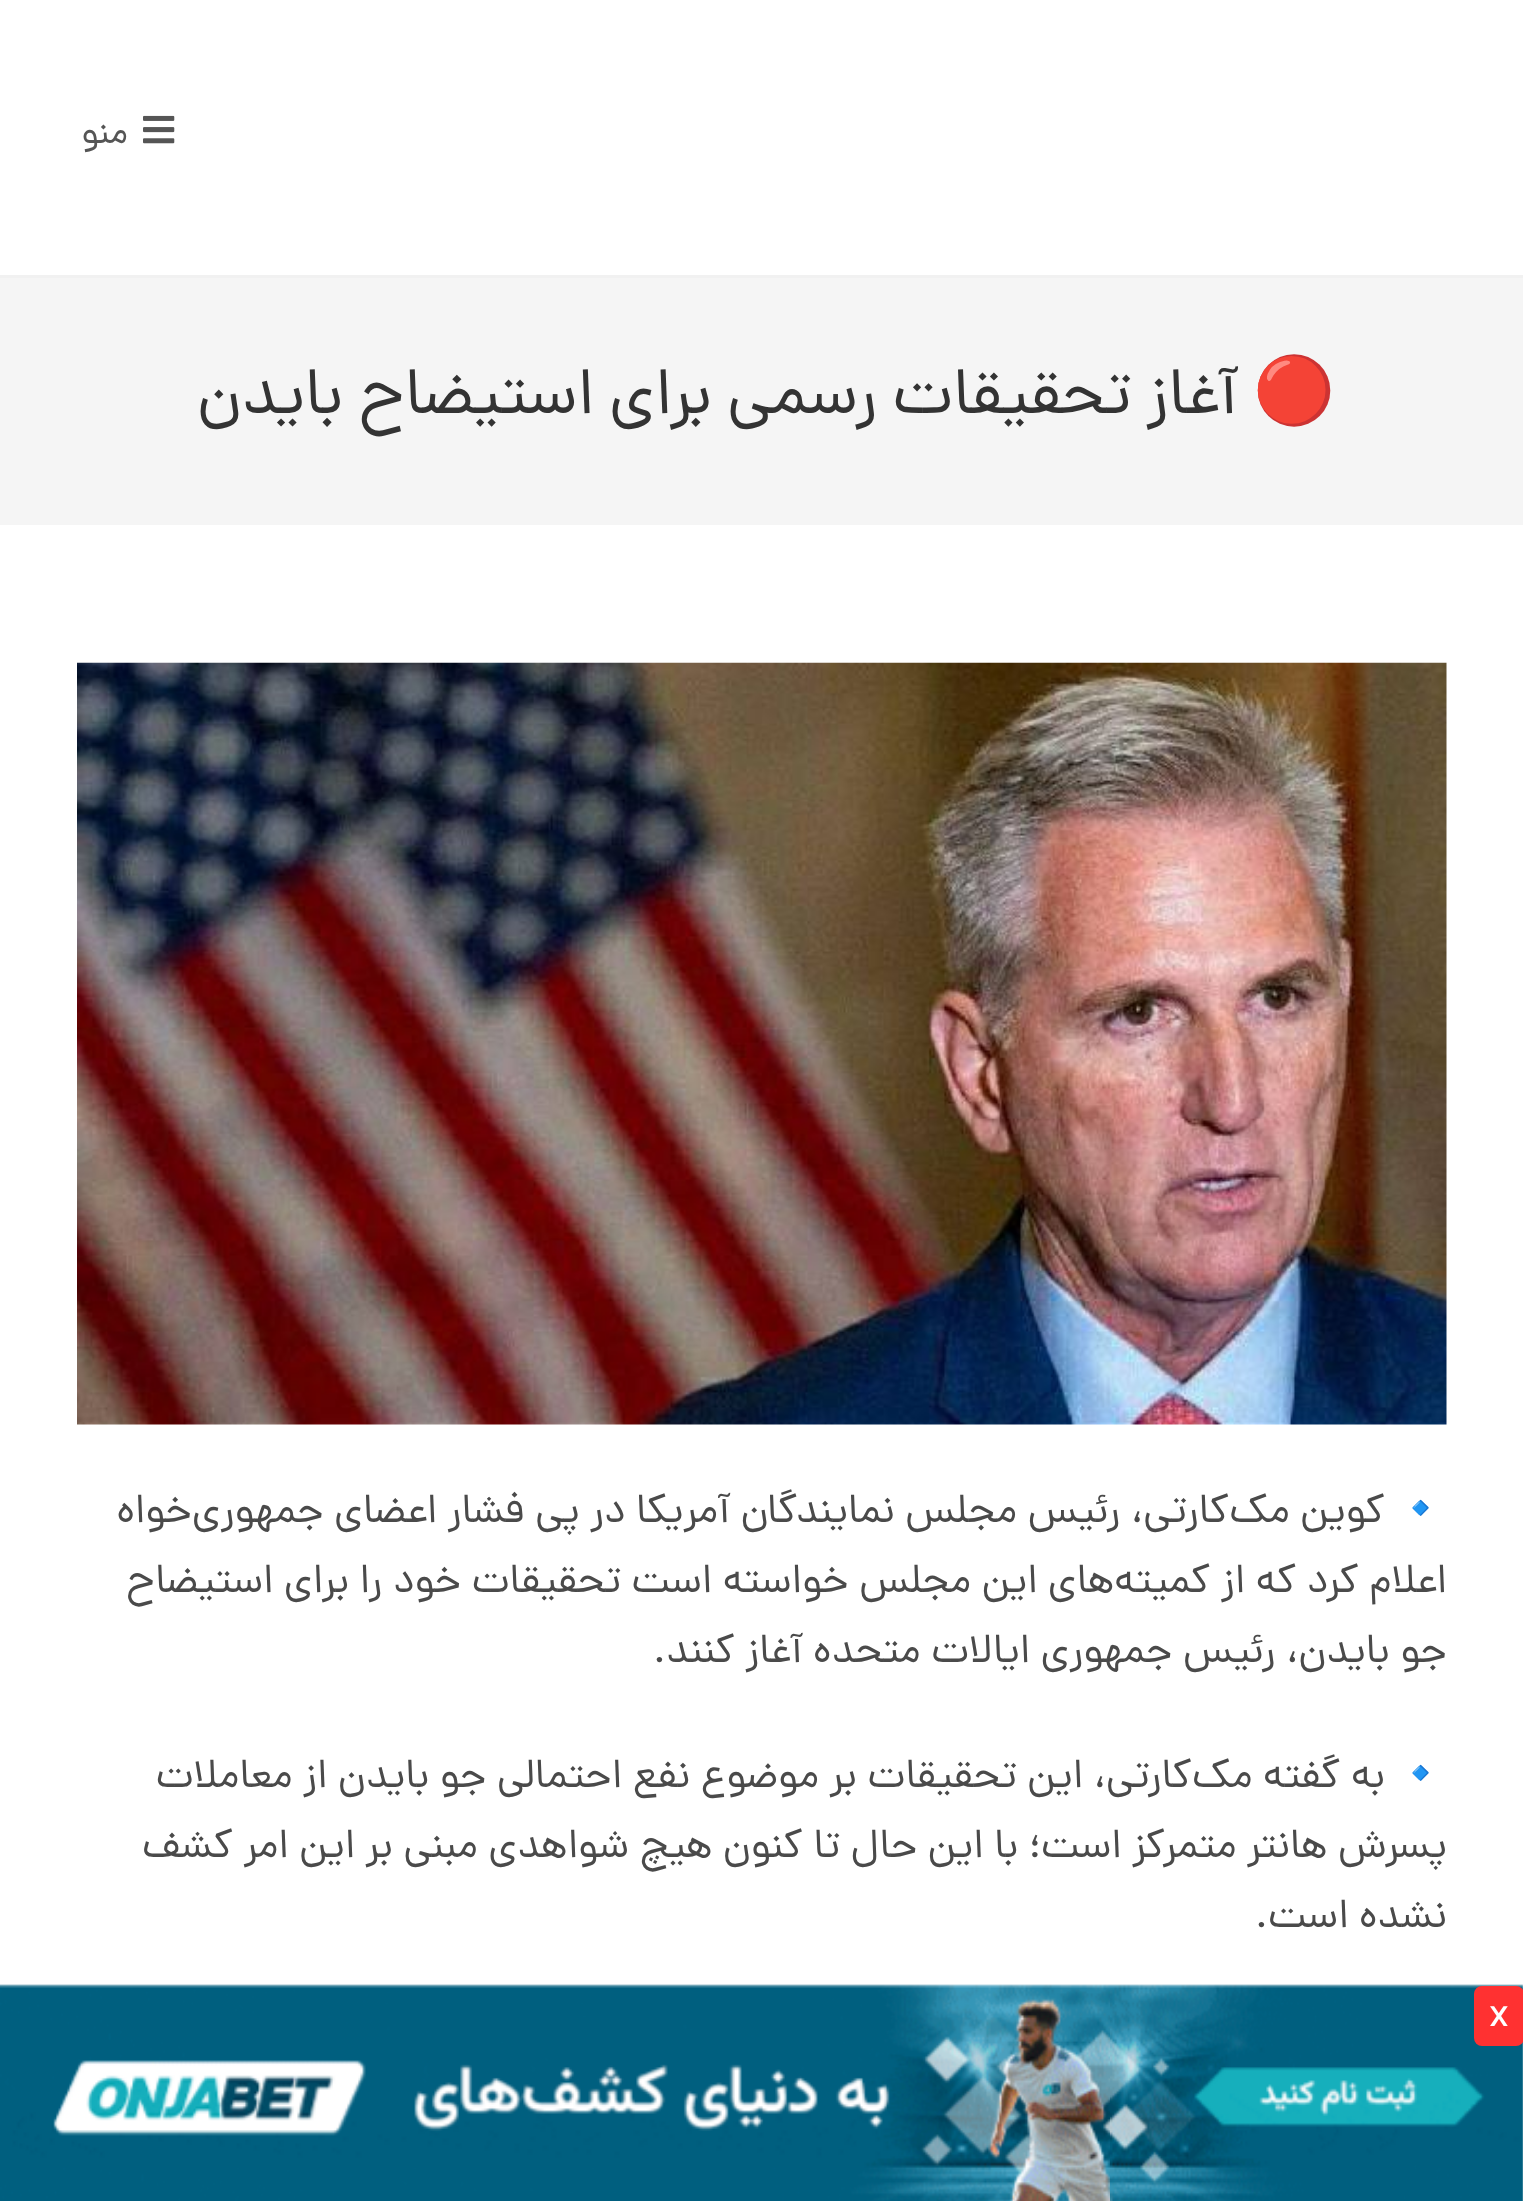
(async () => {
const canvas = document.querySelector("canvas")
canvas.width = 1523
canvas.height = 2201
const c = canvas.getContext("2d")
c.miterLimit = 4
c.fontKerning = "normal"
function T(s,x,y){c.fillText(s,x,y)}
function R(x,y,w,h){c.fillRect(x,y,w,h)}
function Q(x,y,w,h,r){c.beginPath();c.roundRect(x,y,w,h,r);c.fill()}
async function I(src,x,y,w,h){const img=new Image();img.src=src;await img.decode();c.drawImage(img,x,y,w,h)}
c.fillStyle="#fff"
R(0,0,1523,2201)
c.fillStyle="#f1f1f1"
R(0,275,1523,3)
await I("1.png",143,115,32,29)
c.letterSpacing="1.5px"
c.direction="rtl"
c.font="36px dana"
c.fillStyle="#555"
T("منو",128,143)
c.fillStyle="#f5f5f5"
R(0,278,1523,247)
c.letterSpacing="0.3px"
c.font="66px Noto Color Emoji"
c.fillStyle="#333"
T("🔴",1336,413)
c.wordSpacing="-2px"
c.font="66px dana"
T("آغاز تحقیقات رسمی برای استیضاح بایدن",1238,413)
await I("2.png",77,662,1370,763)
c.letterSpacing="0px"
c.wordSpacing="0px"
c.font="41.25px Noto Color Emoji"
c.fillStyle="#4a4a4a"
T("🔹️",1447,1522)
c.font="41.25px dana"
T("کوین مک‌کارتی، رئیس مجلس نمایندگان آمریکا در پی فشار اعضای جمهوری‌خواه",1385,1522)
T("اعلام کرد که از کمیته‌های این مجلس خواسته‌ است تحقیقات خود را برای استیضاح",1447,1592)
T("جو بایدن، رئیس جمهوری ایالات متحده آغاز کنند.",1447,1662)
c.font="41.25px Noto Color Emoji"
T("🔹️",1447,1787)
c.font="41.25px dana"
T("به گفته مک‌کارتی، این تحقیقات بر موضوع نفع احتمالی جو بایدن از معاملات",1385,1787)
T("پسرش هانتر متمرکز است؛ با این حال تا کنون هیچ شواهدی مبنی بر این امر کشف",1447,1857)
T("نشده است.",1447,1927)
await I("3.png",0,1984,1523,217)
c.fillStyle="#ff3131"
Q(1474,1986,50,60,8)
c.direction="ltr"
c.fillStyle="#fff"
T("x",1489,2026)
})()
